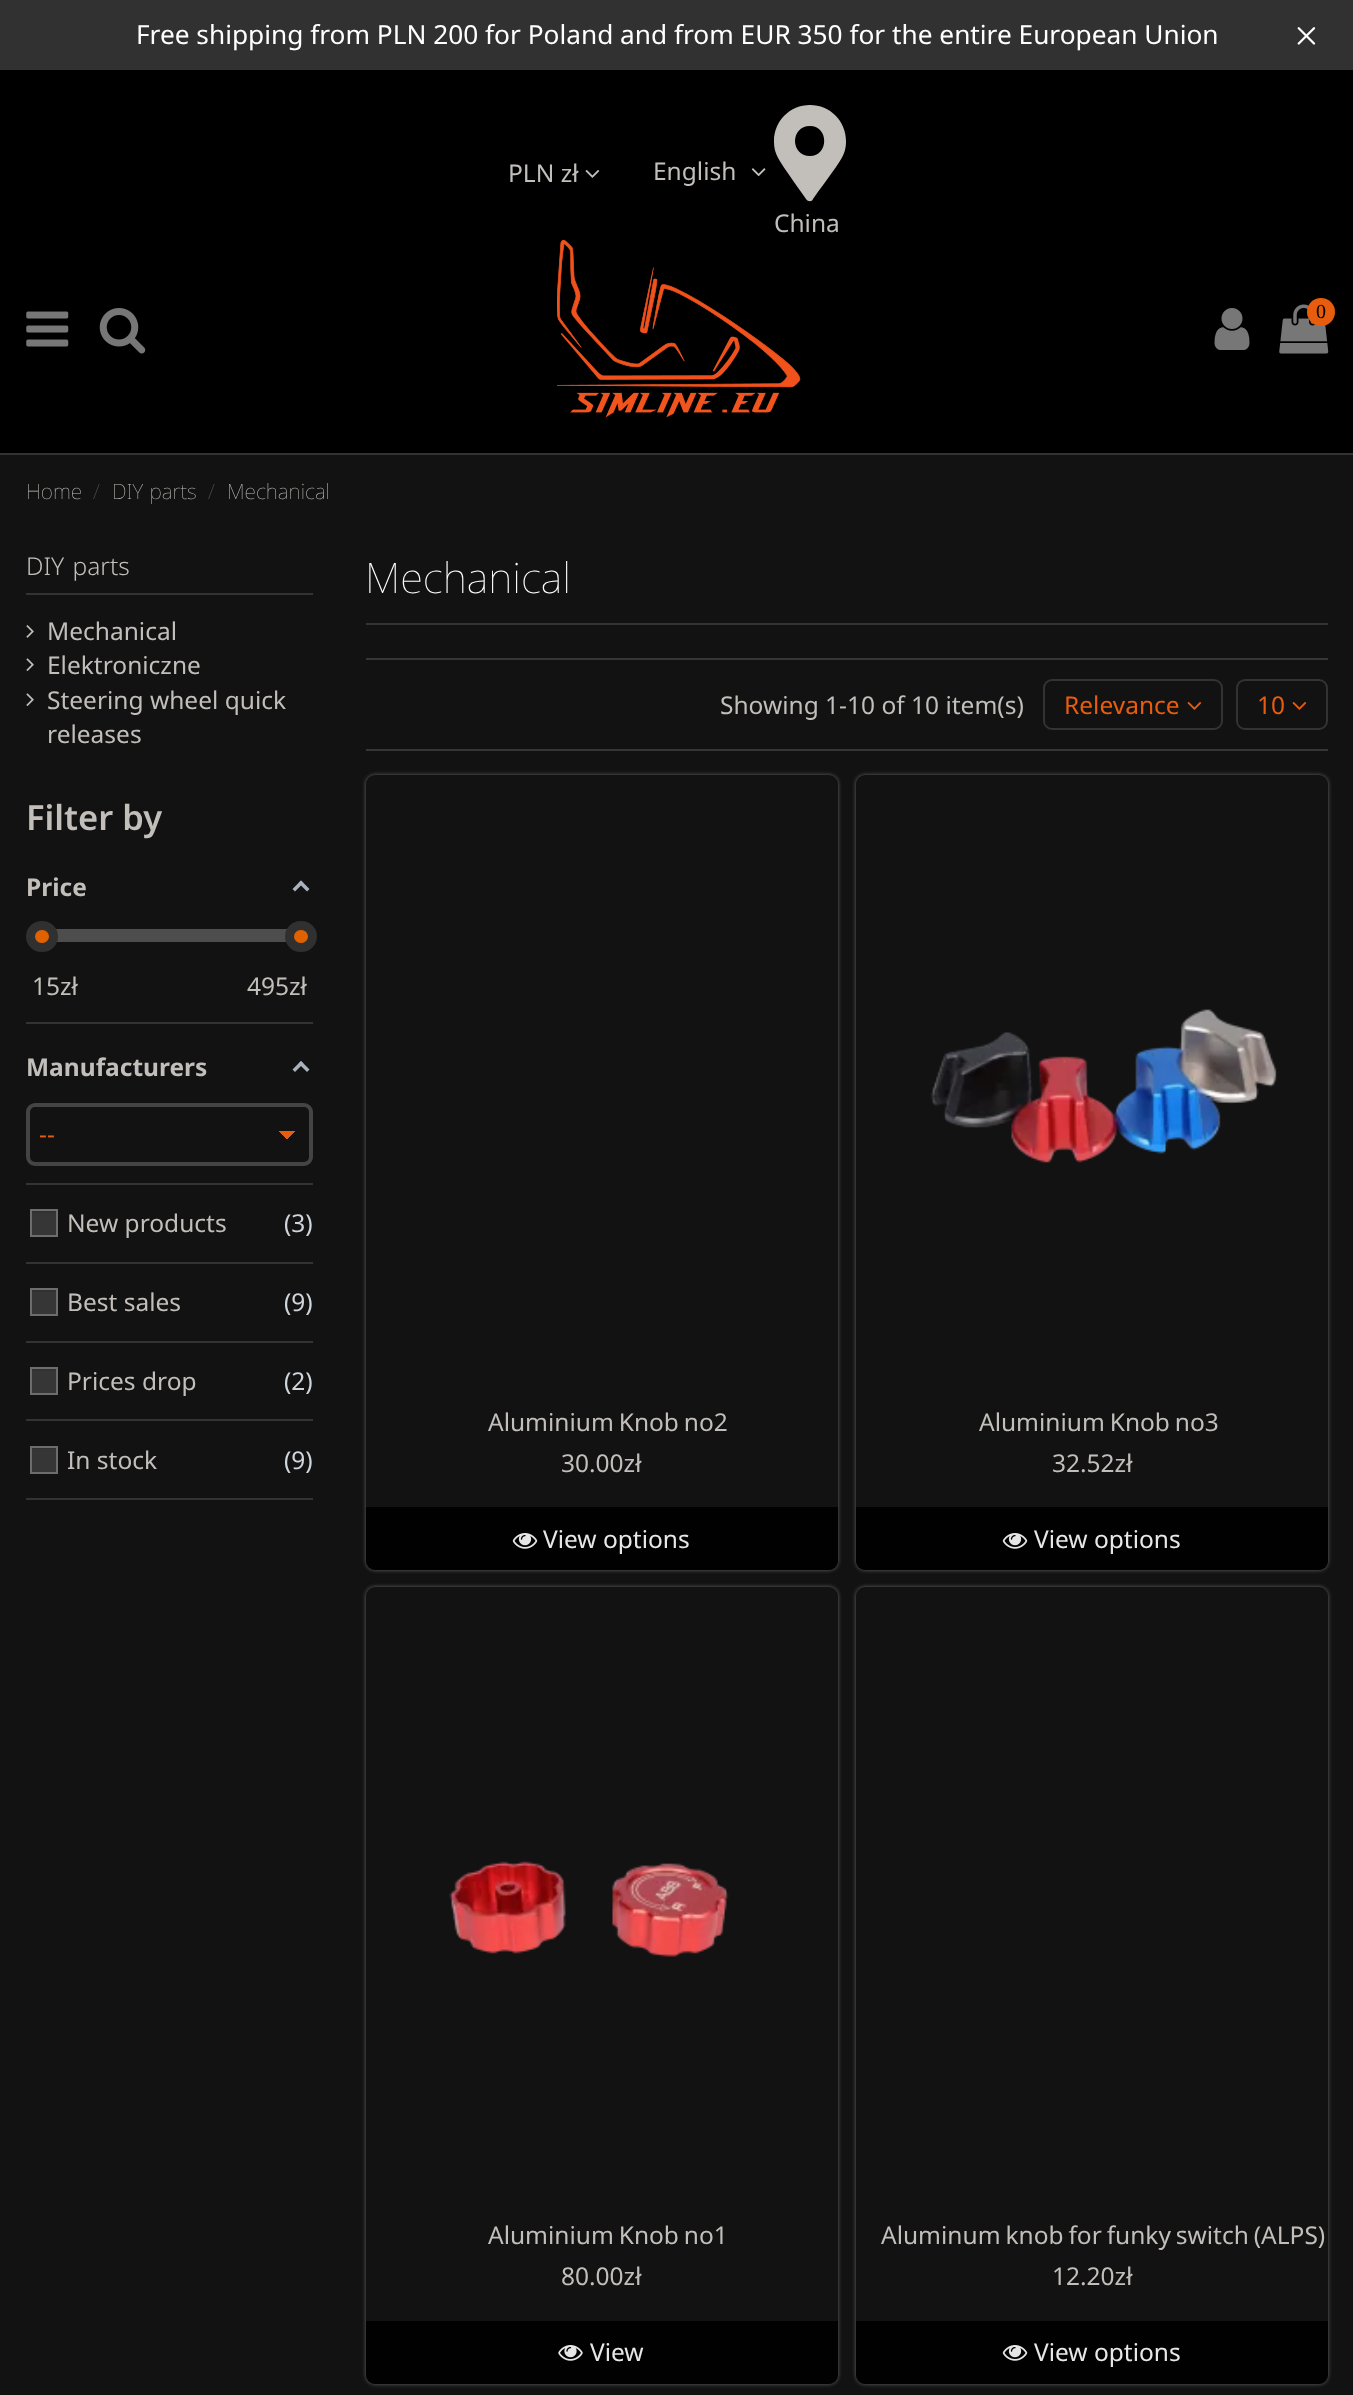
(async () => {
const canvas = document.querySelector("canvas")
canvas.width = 1353
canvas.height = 2395
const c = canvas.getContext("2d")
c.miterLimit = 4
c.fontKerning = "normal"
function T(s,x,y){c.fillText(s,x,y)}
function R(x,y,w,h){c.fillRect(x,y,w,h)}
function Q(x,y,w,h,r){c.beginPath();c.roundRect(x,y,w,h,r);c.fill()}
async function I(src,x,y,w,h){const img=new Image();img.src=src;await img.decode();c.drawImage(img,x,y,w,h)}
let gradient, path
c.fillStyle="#121212"
R(0,0,1353,2395)
c.fillStyle="#313131"
R(0,0,1353,70)
c.font="26.25px Noto Sans"
c.fillStyle="#fff"
T("Free shipping from PLN 200 for Poland and from EUR 350 for the entire European Union",136,44)
await I("1.png",1297,27,19,18)
c.fillStyle="#000"
R(0,70,1353,383)
c.fillStyle="#333"
R(0,453,1353,2)
c.font="24.5px Noto Sans"
c.fillStyle="#c2bfbb"
T("PLN zł",508,182)
await I("2.png",585,170,15,8)
T("English",653,180)
await I("3.png",751,168,15,9)
path = new Path2D("M806 199c-27-39-32-43-32-58c0-20 16-36 36-36c20 0 36 16 36 36c0 15-5 19-33 58c-1 3-5 3-7 0zm4-43c19 0 19-30 0-30c-20 0-20 30 0 30z")
c.fill(path)
T("China",774,232)
await I("4.png",26,311,43,36)
await I("5.png",99,308,47,46)
await I("6.png",557,240,244,178)
await I("7.png",1214,308,36,42)
await I("8.png",1279,304,50,50)
c.fillStyle="#e85c0e"
c.beginPath()
c.arc(1321,312,14,0,7)
c.fill()
c.font="20px Liberation Serif"
c.fillStyle="#000"
T("0",1316,318)
c.font="100 21px Noto Sans"
c.fillStyle="#c2bfbb"
T("Home",26,499)
c.fillStyle="#585756"
T("/",93,499)
c.wordSpacing="1px"
c.fillStyle="#c2bfbb"
T("DIY parts",112,499)
c.wordSpacing="0px"
c.fillStyle="#585756"
T("/",208,499)
c.fillStyle="#c2bfbb"
T("Mechanical",227,499)
c.fillStyle="#333"
R(26,593,287,2)
c.wordSpacing="2px"
c.font="300 24.5px Noto Sans"
c.fillStyle="#c2bfbb"
T("DIY parts",26,575)
await I("9.png",26,625,8,13)
c.wordSpacing="0px"
c.font="24.5px Noto Sans"
T("Mechanical",47,640)
await I("10.png",26,658,8,13)
T("Elektroniczne",47,674)
await I("10.png",26,693,8,13)
T("Steering wheel quick",47,709)
T("releases",47,743)
c.font="600 34.5px Noto Sans"
T("Filter by",26,830)
c.fillStyle="#333"
R(26,1022,287,2)
c.font="bold 24.5px Noto Sans"
c.fillStyle="#c2bfbb"
T("Price",26,896)
c.fillStyle="#aab2bd"
path = new Path2D("M301 880.5l8.5 8.5l-2.5 2.5l-8.5-8.5z")
c.fill(path)
path = new Path2D("M301 880.5l2.5 2.5l-8.5 8.5l-2.5-2.5z")
c.fill(path)
c.fillStyle="#4d4d4d"
R(56,929,231,13)
c.fillStyle="#e06100"
c.beginPath()
c.roundRect(30.5,925.5,23,22,11)
c.fill()
c.strokeStyle="#303030"
c.lineWidth=9
c.stroke()
c.beginPath()
c.roundRect(289.5,925.5,23,22,11)
c.fill()
c.stroke()
c.font="24.5px Noto Sans"
c.fillStyle="#c2bfbb"
T("15zł",32,995)
T("495zł",247,995)
c.fillStyle="#333"
R(26,1183,287,2)
c.font="bold 24.5px Noto Sans"
c.fillStyle="#c2bfbb"
T("Manufacturers",26,1076)
c.fillStyle="#aab2bd"
path = new Path2D("M301 1061l8.5 8.5l-2.5 2.5l-8.5-8.5z")
c.fill(path)
path = new Path2D("M301 1061l2.5 2.5l-8.5 8.5l-2.5-2.5z")
c.fill(path)
gradient = c.createLinearGradient(287,1131,296,1139)
gradient.addColorStop(.5,"#e85c0e")
gradient.addColorStop(.5,"#121212")
c.fillStyle = gradient
R(287,1131,9,8)
gradient = c.createLinearGradient(278,1139,287,1131)
gradient.addColorStop(.5,"#121212")
gradient.addColorStop(.5,"#e85c0e")
c.fillStyle = gradient
R(278,1131,9,8)
c.beginPath()
c.roundRect(28,1105,283,59,7)
c.strokeStyle="#444"
c.lineWidth=4
c.stroke()
c.font="24.5px Noto Sans"
c.fillStyle="#e85c0e"
T("--",39,1143)
c.fillStyle="#333"
R(26,1262,287,2)
c.fillStyle="#363636"
R(32,1213,24,22)
c.fillStyle="#313131"
R(32,1211,24,2)
c.strokeStyle="#6d6d6d"
c.lineWidth=2
c.strokeRect(31,1210,26,26)
c.fillStyle="#c2bfbb"
T("New products",67,1232)
c.fillStyle="#d0d5db"
T("(3)",284,1232)
c.fillStyle="#333"
R(26,1341,287,2)
c.fillStyle="#363636"
R(32,1292,24,22)
c.fillStyle="#313131"
R(32,1290,24,2)
c.strokeRect(31,1289,26,26)
c.fillStyle="#c2bfbb"
T("Best sales",67,1311)
c.fillStyle="#d0d5db"
T("(9)",284,1311)
c.fillStyle="#333"
R(26,1419,287,2)
c.fillStyle="#363636"
R(32,1371,24,22)
c.fillStyle="#313131"
R(32,1369,24,2)
c.strokeRect(31,1368,26,26)
c.fillStyle="#c2bfbb"
T("Prices drop",67,1390)
c.fillStyle="#d0d5db"
T("(2)",284,1390)
c.fillStyle="#333"
R(26,1498,287,2)
c.fillStyle="#363636"
R(32,1449,24,23)
c.fillStyle="#313131"
R(32,1448,24,1)
c.strokeRect(31,1447,26,26)
c.fillStyle="#c2bfbb"
T("In stock",67,1469)
c.fillStyle="#d0d5db"
T("(9)",284,1469)
c.fillStyle="#333"
R(366,623,962,2)
c.font="100 42px Noto Sans"
c.fillStyle="#fff"
T("Mechanical",365,593)
c.fillStyle="#363636"
R(366,658,962,2)
R(366,749,962,2)
c.font="24.5px Noto Sans"
c.fillStyle="#c2bfbb"
T("Showing 1-10 of 10 item(s)",720,714)
c.beginPath()
c.roundRect(1044,680,178,49,8)
c.strokeStyle="#333"
c.stroke()
c.fillStyle="#e85c0e"
T("Relevance",1064,714)
await I("11.png",1187,702,15,8)
c.beginPath()
c.roundRect(1237,680,90,49,8)
c.stroke()
T("10",1257,714)
await I("11.png",1292,702,15,8)
c.fillStyle="#666"
c.filter="blur(2px)"
c.beginPath()
c.roundRect(366,775,472,795,9)
c.fill()
c.filter="none"
c.fillStyle="#121212"
Q(366,775,472,795,9)
c.wordSpacing="-1.5px"
c.fillStyle="#c2bfbb"
T("Aluminium Knob no2",488,1431)
c.wordSpacing="0px"
T("30.00zł",561,1472)
c.fillStyle="#000000e6"
c.beginPath()
c.roundRect(366,1507,472,63,[0,0,9,9])
c.fill()
await I("12.png",512,1533,26,16)
c.fillStyle="#e7e7e7"
T("View options",543,1548)
c.fillStyle="#666"
c.filter="blur(2px)"
c.beginPath()
c.roundRect(856,775,472,795,9)
c.fill()
c.filter="none"
c.fillStyle="#121212"
Q(856,775,472,795,9)
await I("13.png",930,1009,347,154)
c.wordSpacing="-1.5px"
c.fillStyle="#c2bfbb"
T("Aluminium Knob no3",979,1431)
c.wordSpacing="0px"
T("32.52zł",1052,1472)
c.fillStyle="#000000e6"
c.beginPath()
c.roundRect(856,1507,472,63,[0,0,9,9])
c.fill()
await I("12.png",1002,1533,26,16)
c.fillStyle="#e7e7e7"
T("View options",1034,1548)
c.fillStyle="#666"
c.filter="blur(2px)"
c.beginPath()
c.roundRect(366,1587,472,797,9)
c.fill()
c.filter="none"
c.fillStyle="#121212"
Q(366,1587,472,797,9)
await I("14.png",449,1861,280,96)
c.wordSpacing="-1.5px"
c.fillStyle="#c2bfbb"
T("Aluminium Knob no1",488,2244)
c.wordSpacing="0px"
T("80.00zł",561,2285)
c.fillStyle="#000000e6"
c.beginPath()
c.roundRect(366,2321,472,63,[0,0,9,9])
c.fill()
await I("15.png",558,2345,25,16)
c.fillStyle="#e7e7e7"
T("View",590,2361)
c.fillStyle="#666"
c.filter="blur(2px)"
c.beginPath()
c.roundRect(856,1587,472,797,9)
c.fill()
c.filter="none"
c.fillStyle="#121212"
Q(856,1587,472,797,9)
c.wordSpacing="-1.5px"
c.fillStyle="#c2bfbb"
T("Aluminum knob for funky switch (ALPS)",881,2244)
c.wordSpacing="0px"
T("12.20zł",1052,2285)
c.fillStyle="#000000e6"
c.beginPath()
c.roundRect(856,2321,472,63,[0,0,9,9])
c.fill()
await I("12.png",1002,2345,26,16)
c.fillStyle="#e7e7e7"
T("View options",1034,2361)
})()
